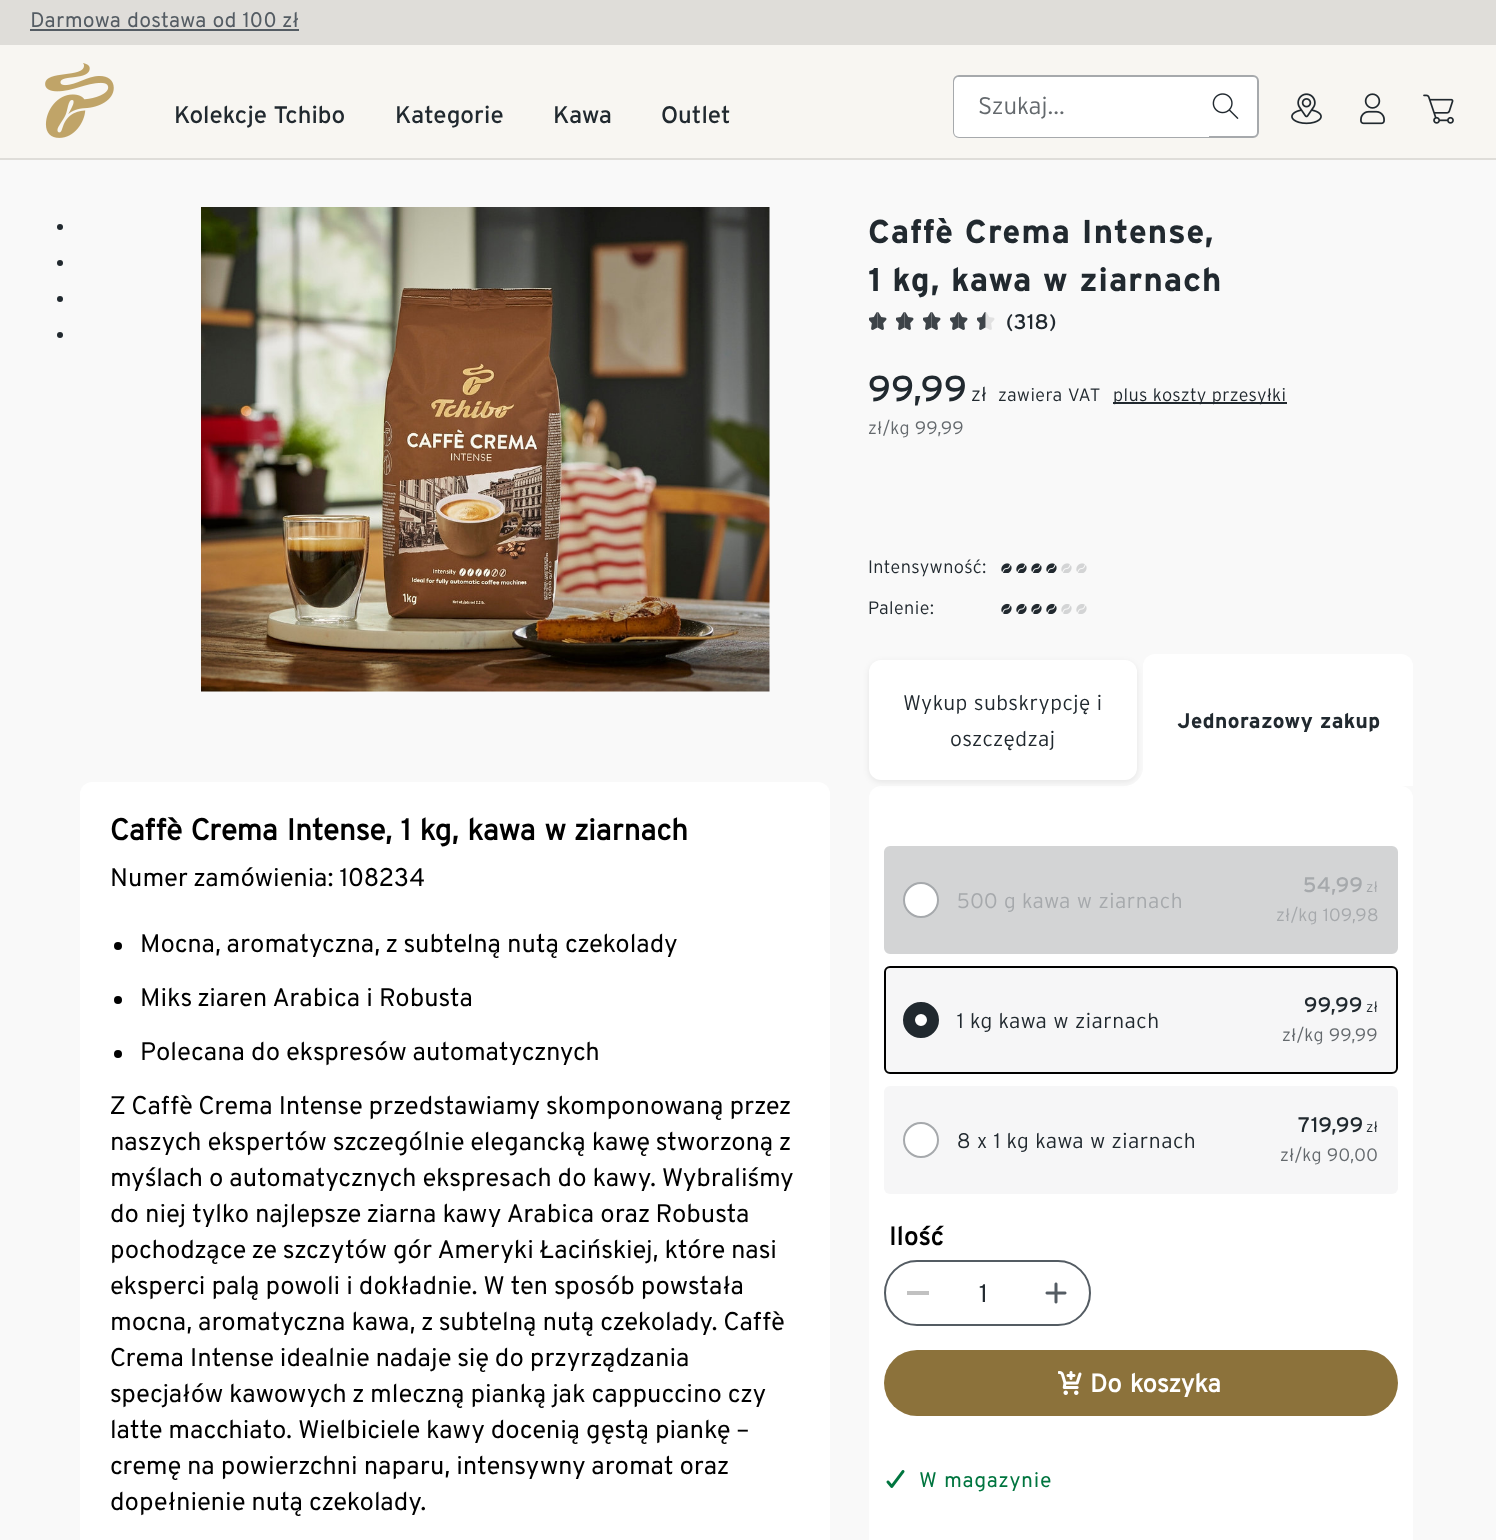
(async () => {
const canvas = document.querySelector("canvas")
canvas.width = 1496
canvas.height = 1540
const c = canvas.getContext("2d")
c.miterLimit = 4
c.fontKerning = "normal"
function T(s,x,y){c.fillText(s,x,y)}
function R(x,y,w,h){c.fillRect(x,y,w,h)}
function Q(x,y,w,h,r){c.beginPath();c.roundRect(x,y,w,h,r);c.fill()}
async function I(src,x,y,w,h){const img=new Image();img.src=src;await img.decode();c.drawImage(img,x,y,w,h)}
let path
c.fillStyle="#f9f9f9"
R(0,0,1496,1540)
c.fillStyle="#f8f6f2"
R(0,45,1496,113)
c.fillStyle="#dfddd9"
R(0,0,1496,45)
c.wordSpacing="0.5px"
c.font="21px 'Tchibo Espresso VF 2'"
c.fillStyle="#545c63"
T("Darmowa dostawa od 100 zł",30,27)
R(30,29,269,2)
c.fillStyle="#dfddd9"
R(0,158,1496,2)
await I("1.png",45,63,69,75)
c.wordSpacing="0px"
c.font="24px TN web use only"
c.fillStyle="#21292f"
T("Kolekcje Tchibo",174,123)
T("Kategorie",395,123)
T("Kawa",553,123)
T("Outlet",661,123)
c.fillStyle="#fff"
c.beginPath()
c.roundRect(954,76,304,61,5)
c.fill()
c.strokeStyle="#a6a9ac"
c.lineWidth=2
c.stroke()
c.beginPath()
c.roundRect(954,77,255,60,[5,0,0,5])
c.fill()
c.font="300 24px TN web use only"
c.fillStyle="#64696d"
T("Szukaj...",978,114)
await I("2.png",1212,93,27,26)
await I("3.png",1291,93,31,32)
await I("4.png",1360,93,25,32)
await I("5.png",1423,94,31,30)
c.fillStyle="#21292f"
c.beginPath()
c.arc(60,227,3,0,7)
c.fill()
c.beginPath()
c.arc(60,263,3,0,7)
c.fill()
c.beginPath()
c.arc(60,299,3,0,7)
c.fill()
c.beginPath()
c.arc(60,335,3,0,7)
c.fill()
await I("6.png",201,207,569,485)
c.letterSpacing="1.05px"
c.font="bold 33px TN web use only"
T("Caffè Crema Intense,",868,243)
T("1 kg, kawa w ziarnach",868,291)
await I("7.png",869,312,18,18)
await I("7.png",896,312,18,18)
await I("7.png",923,312,18,18)
await I("7.png",950,312,18,18)
await I("8.png",977,312,18,18)
c.letterSpacing="0.45px"
c.font="21px TN web use only"
T("(318)",1006,329)
c.font="36px TN web use only"
T("99,99",868,401)
c.font="300 20px TN web use only"
T("zł",971,401)
c.font="300 18px TN web use only"
c.fillStyle="#64696d"
T("zł/kg 99,99",868,434)
c.letterSpacing="0.4px"
c.fillStyle="#21292f"
T("zawiera VAT",998,401)
R(1113,402,174,2)
T("plus koszty przesyłki",1113,401)
T("Intensywność:",868,573)
await I("9.png",1001,563,11,10)
await I("9.png",1016,563,11,10)
await I("9.png",1031,563,11,10)
await I("9.png",1046,563,11,10)
await I("10.png",1061,563,11,10)
await I("10.png",1076,563,11,10)
T("Palenie:",868,614)
await I("11.png",1001,603,11,11)
await I("11.png",1016,603,11,11)
await I("11.png",1031,603,11,11)
await I("11.png",1046,603,11,11)
await I("12.png",1061,604,11,10)
await I("12.png",1076,604,11,10)
c.fillStyle="#fff"
Q(869,786,544,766,12)
c.fillStyle="#00000014"
c.filter="blur(3px)"
c.beginPath()
c.roundRect(869,662,268,120,12)
c.fill()
c.filter="none"
c.fillStyle="#fff"
Q(869,660,268,120,12)
c.letterSpacing="0.45px"
c.font="300 21px TN web use only"
c.fillStyle="#21292f"
T("Wykup subskrypcję i",903,710)
T("oszczędzaj",950,746)
c.fillStyle="#fff"
c.beginPath()
c.roundRect(1143,654,270,132,[12,12,0,0])
c.fill()
c.font="bold 21px TN web use only"
c.fillStyle="#21292f"
T("Jednorazowy zakup",1177,728)
c.fillStyle="#fff"
path = new Path2D("M1125 786h18v-18c0 9-9 18-18 18")
c.fill(path)
c.fillStyle="#d3d4d5"
c.beginPath()
c.roundRect(885,847,512,106,5)
c.fill()
c.strokeStyle="#d3d4d5"
c.stroke()
c.fillStyle="#fff"
c.beginPath()
c.arc(921,900,17,0,7)
c.fill()
c.strokeStyle="#a6a9ac"
c.stroke()
c.font="300 21px TN web use only"
c.fillStyle="#a6a9ac"
T("500 g kawa w ziarnach",957,908)
c.font="21px TN web use only"
T("54,99",1303,892)
c.font="300 15px TN web use only"
T("zł",1366,892)
c.font="300 18px TN web use only"
T("zł/kg 109,98",1276,921)
c.fillStyle="#f6f6f7"
c.beginPath()
c.roundRect(885,967,512,106,5)
c.fill()
c.strokeStyle="#000"
c.stroke()
c.fillStyle="#fff"
c.beginPath()
c.arc(921,1020,12,0,7)
c.fill()
c.strokeStyle="#21292f"
c.lineWidth=12
c.stroke()
c.font="300 21px TN web use only"
c.fillStyle="#21292f"
T("1 kg kawa w ziarnach",957,1028)
c.font="21px TN web use only"
T("99,99",1304,1012)
c.font="300 15px TN web use only"
T("zł",1366,1012)
c.font="300 18px TN web use only"
c.fillStyle="#64696d"
T("zł/kg 99,99",1282,1041)
c.fillStyle="#f6f6f7"
Q(884,1086,514,108,6)
c.fillStyle="#fff"
c.beginPath()
c.arc(921,1140,17,0,7)
c.fill()
c.strokeStyle="#a6a9ac"
c.lineWidth=2
c.stroke()
c.font="300 21px TN web use only"
c.fillStyle="#21292f"
T("8 x 1 kg kawa w ziarnach",957,1148)
c.font="21px TN web use only"
T("719,99",1298,1132)
c.font="300 15px TN web use only"
T("zł",1366,1132)
c.font="300 18px TN web use only"
c.fillStyle="#64696d"
T("zł/kg 90,00",1280,1161)
c.font="bold 25.5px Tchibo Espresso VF"
c.fillStyle="#000"
T("Ilość",889,1245)
c.beginPath()
c.roundRect(885,1261,205,64,32)
c.strokeStyle="#545c63"
c.stroke()
c.fillStyle="#c1c1c1"
R(907,1291,22,4)
c.letterSpacing="0px"
c.font="25.5px Tchibo Espresso VF"
c.fillStyle="#21292f"
T("1",979,1302)
await I("13.png",1045,1282,22,22)
c.fillStyle="#8c723b"
Q(884,1350,514,66,33)
await I("14.png",1058,1371,24,24)
c.wordSpacing="2px"
c.font="bold 25.5px Tchibo Espresso VF"
c.fillStyle="#fff"
T("Do koszyka",1090,1392)
await I("15.png",886,1470,19,18)
c.letterSpacing="0.45px"
c.wordSpacing="1px"
c.font="21px 'Tchibo Espresso VF 2'"
c.fillStyle="#00753f"
T("W magazynie",919,1487)
c.fillStyle="#fff"
Q(80,782,750,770,12)
c.letterSpacing="0px"
c.wordSpacing="1.75px"
c.font="bold 30px Tchibo Espresso VF"
c.fillStyle="#000"
T("Caffè Crema Intense, 1 kg, kawa w ziarnach",110,840)
c.wordSpacing="0px"
c.font="25.5px Tchibo Espresso VF"
T("Numer zamówienia: 108234",110,886)
c.beginPath()
c.arc(118,946,4,0,7)
c.fill()
T("Mocna, aromatyczna, z subtelną nutą czekolady",140,952)
c.beginPath()
c.arc(118,1000,4,0,7)
c.fill()
T("Miks ziaren Arabica i Robusta",140,1006)
c.beginPath()
c.arc(118,1054,4,0,7)
c.fill()
T("Polecana do ekspresów automatycznych",140,1060)
T("Z Caffè Crema Intense przedstawiamy skomponowaną przez",110,1114)
T("naszych ekspertów szczególnie elegancką kawę stworzoną z",110,1150)
T("myślach o automatycznych ekspresach do kawy. Wybraliśmy",110,1186)
T("do niej tylko najlepsze ziarna kawy Arabica oraz Robusta",110,1222)
T("pochodzące ze szczytów gór Ameryki Łacińskiej, które nasi",110,1258)
T("eksperci palą powoli i dokładnie. W ten sposób powstała",110,1294)
T("mocna, aromatyczna kawa, z subtelną nutą czekolady. Caffè",110,1330)
T("Crema Intense idealnie nadaje się do przyrządzania",110,1366)
T("specjałów kawowych z mleczną pianką jak cappuccino czy",110,1402)
T("latte macchiato. Wielbiciele kawy docenią gęstą piankę –",110,1438)
T("cremę na powierzchni naparu, intensywny aromat oraz",110,1474)
T("dopełnienie nutą czekolady.",110,1510)
})()
